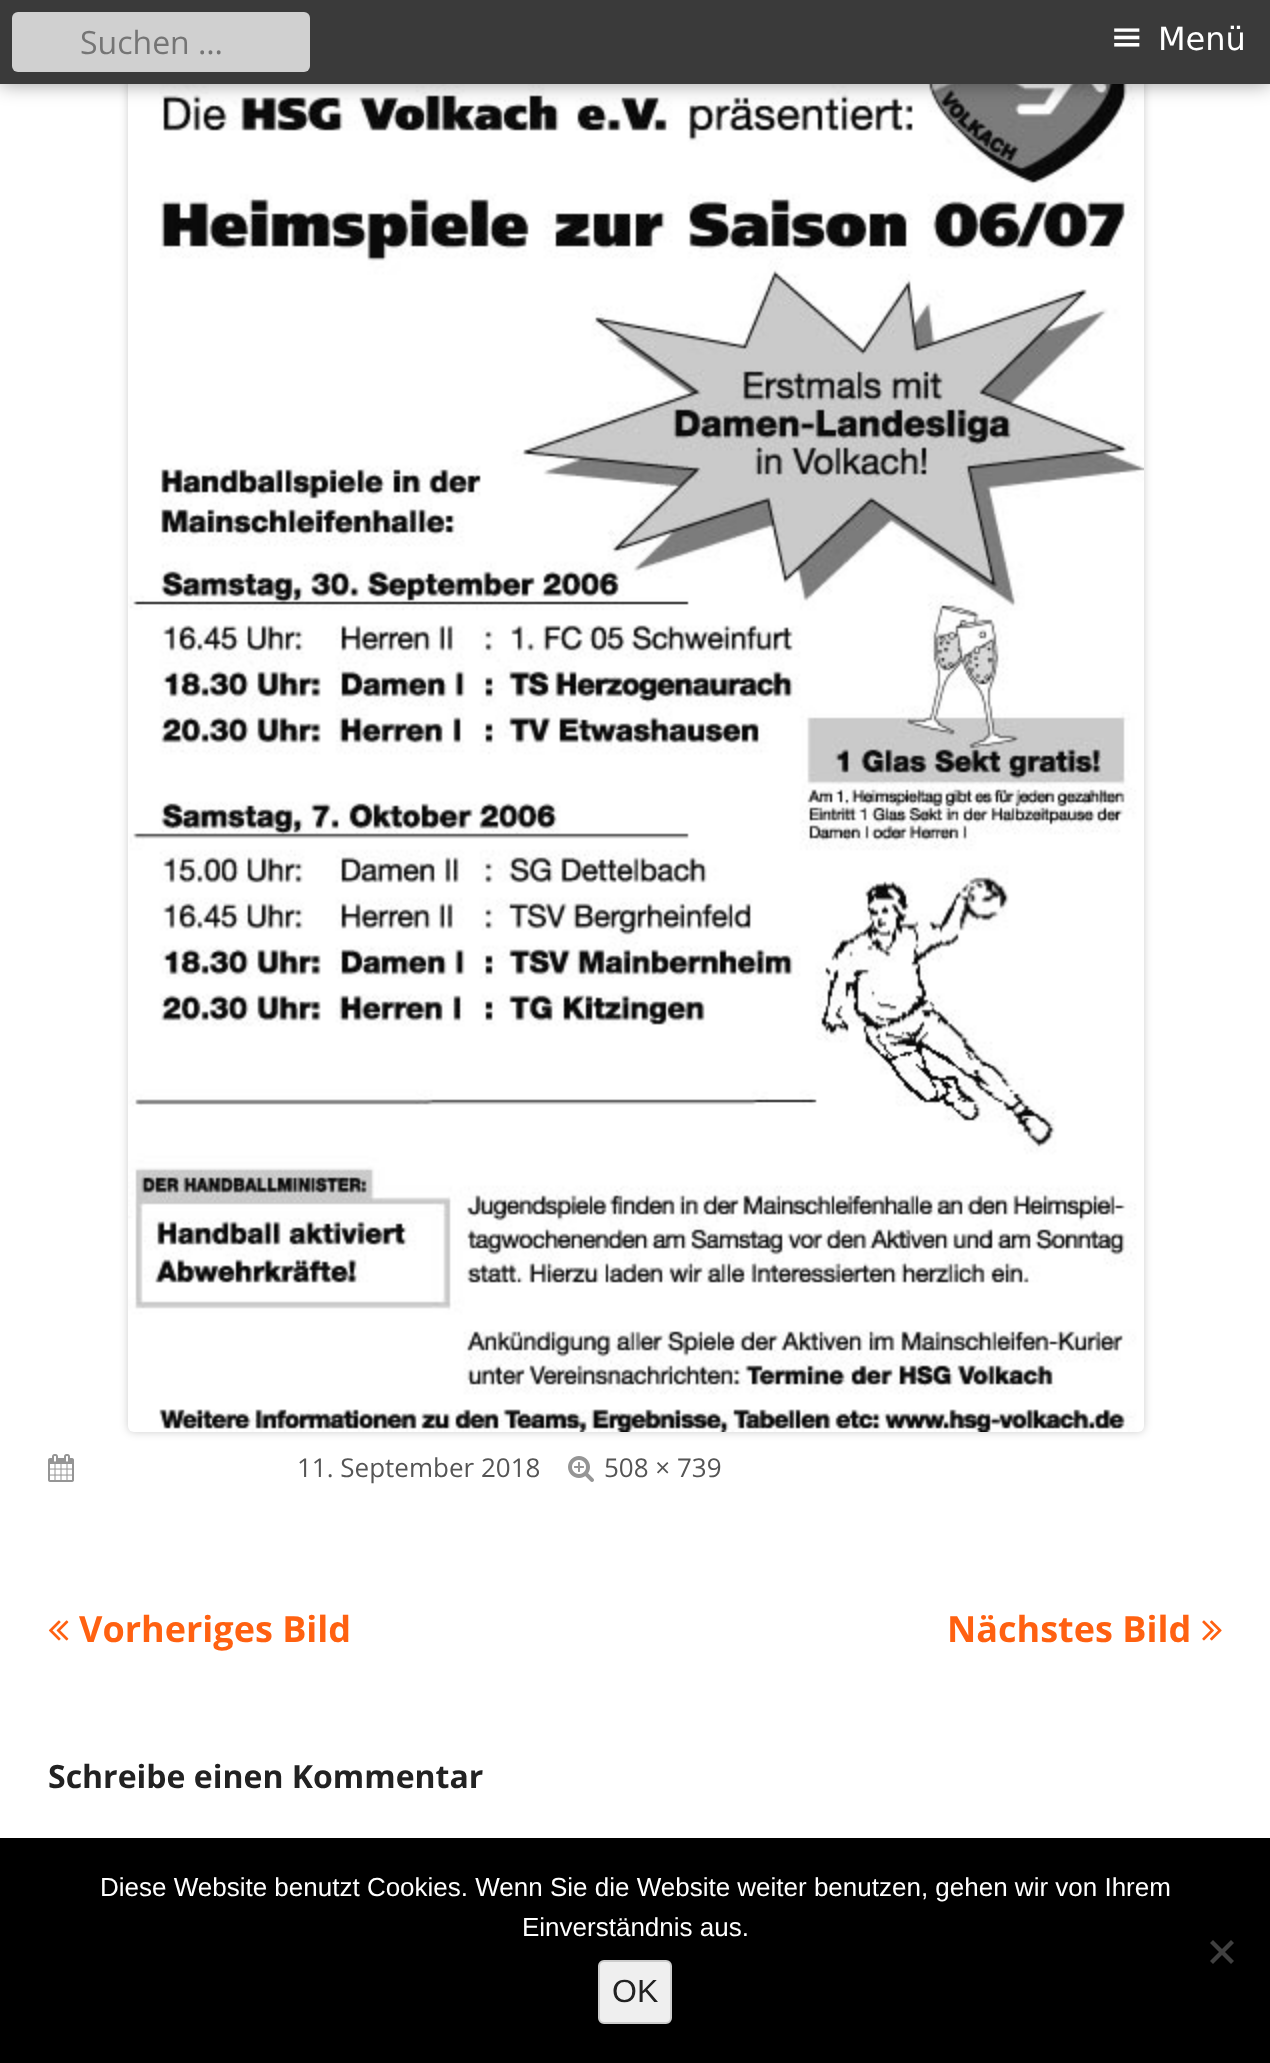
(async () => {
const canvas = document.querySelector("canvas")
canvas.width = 1270
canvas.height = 2063
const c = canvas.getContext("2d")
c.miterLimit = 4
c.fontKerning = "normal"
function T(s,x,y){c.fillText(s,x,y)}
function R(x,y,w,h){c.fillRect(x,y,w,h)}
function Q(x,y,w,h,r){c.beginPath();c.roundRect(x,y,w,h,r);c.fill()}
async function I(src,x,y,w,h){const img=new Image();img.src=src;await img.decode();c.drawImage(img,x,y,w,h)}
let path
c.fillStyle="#fff"
R(0,0,1270,2063)
c.fillStyle="#00000033"
c.filter="blur(4px)"
c.beginPath()
c.roundRect(128,-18,1016,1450,6)
c.fill()
c.filter="none"
await I("1.png",128,84,1016,1348)
c.fillStyle="#00000066"
c.filter="blur(10px)"
c.beginPath()
c.rect(0,0,1270,84)
c.fill()
c.filter="none"
c.fillStyle="#3a3a3a"
R(0,0,1270,84)
c.fillStyle="#d0d0d0"
Q(12,12,298,60,6)
c.font="32px Open Sans"
c.fillStyle="#757575"
T("Suchen …",80,54)
c.font="40px DejaVu Sans"
c.fillStyle="#fff"
T("≡",1110,50)
c.font="32px DejaVu Sans"
T("Menü",1158,50)
await I("2.png",48,1454,26,28)
c.font="26px Open Sans"
c.fillStyle="#555"
T("11. September 2018",297,1477)
await I("3.png",568,1456,26,26)
T("508 × 739",604,1477)
await I("4.png",48,1620,21,21)
c.font="bold 36px Open Sans"
c.fillStyle="#ff6111"
T("Vorheriges Bild",79,1642)
T("Nächstes Bild",947,1642)
await I("5.png",1202,1620,20,21)
c.font="bold 32px Open Sans"
c.fillStyle="#222"
T("Schreibe einen Kommentar",48,1788)
c.fillStyle="#000"
R(0,1838,1270,225)
c.font="26px Liberation Sans"
c.fillStyle="#fff"
T("Diese Website benutzt Cookies. Wenn Sie die Website weiter benutzen, gehen wir von Ihrem",100,1896)
T("Einverständnis aus.",522,1936)
c.fillStyle="#404040"
path = new Path2D("M1231 1940l3 3l-21 21l-3-3z")
c.fill(path)
path = new Path2D("M1210 1943l3-3l21 21l-3 3z")
c.fill(path)
c.fillStyle="#efefef"
c.beginPath()
c.roundRect(599,1961,72,62,5)
c.fill()
c.strokeStyle="#ccc"
c.lineWidth=2
c.stroke()
c.font="32px Liberation Sans"
c.fillStyle="#222"
T("OK",612,2002)
})()
